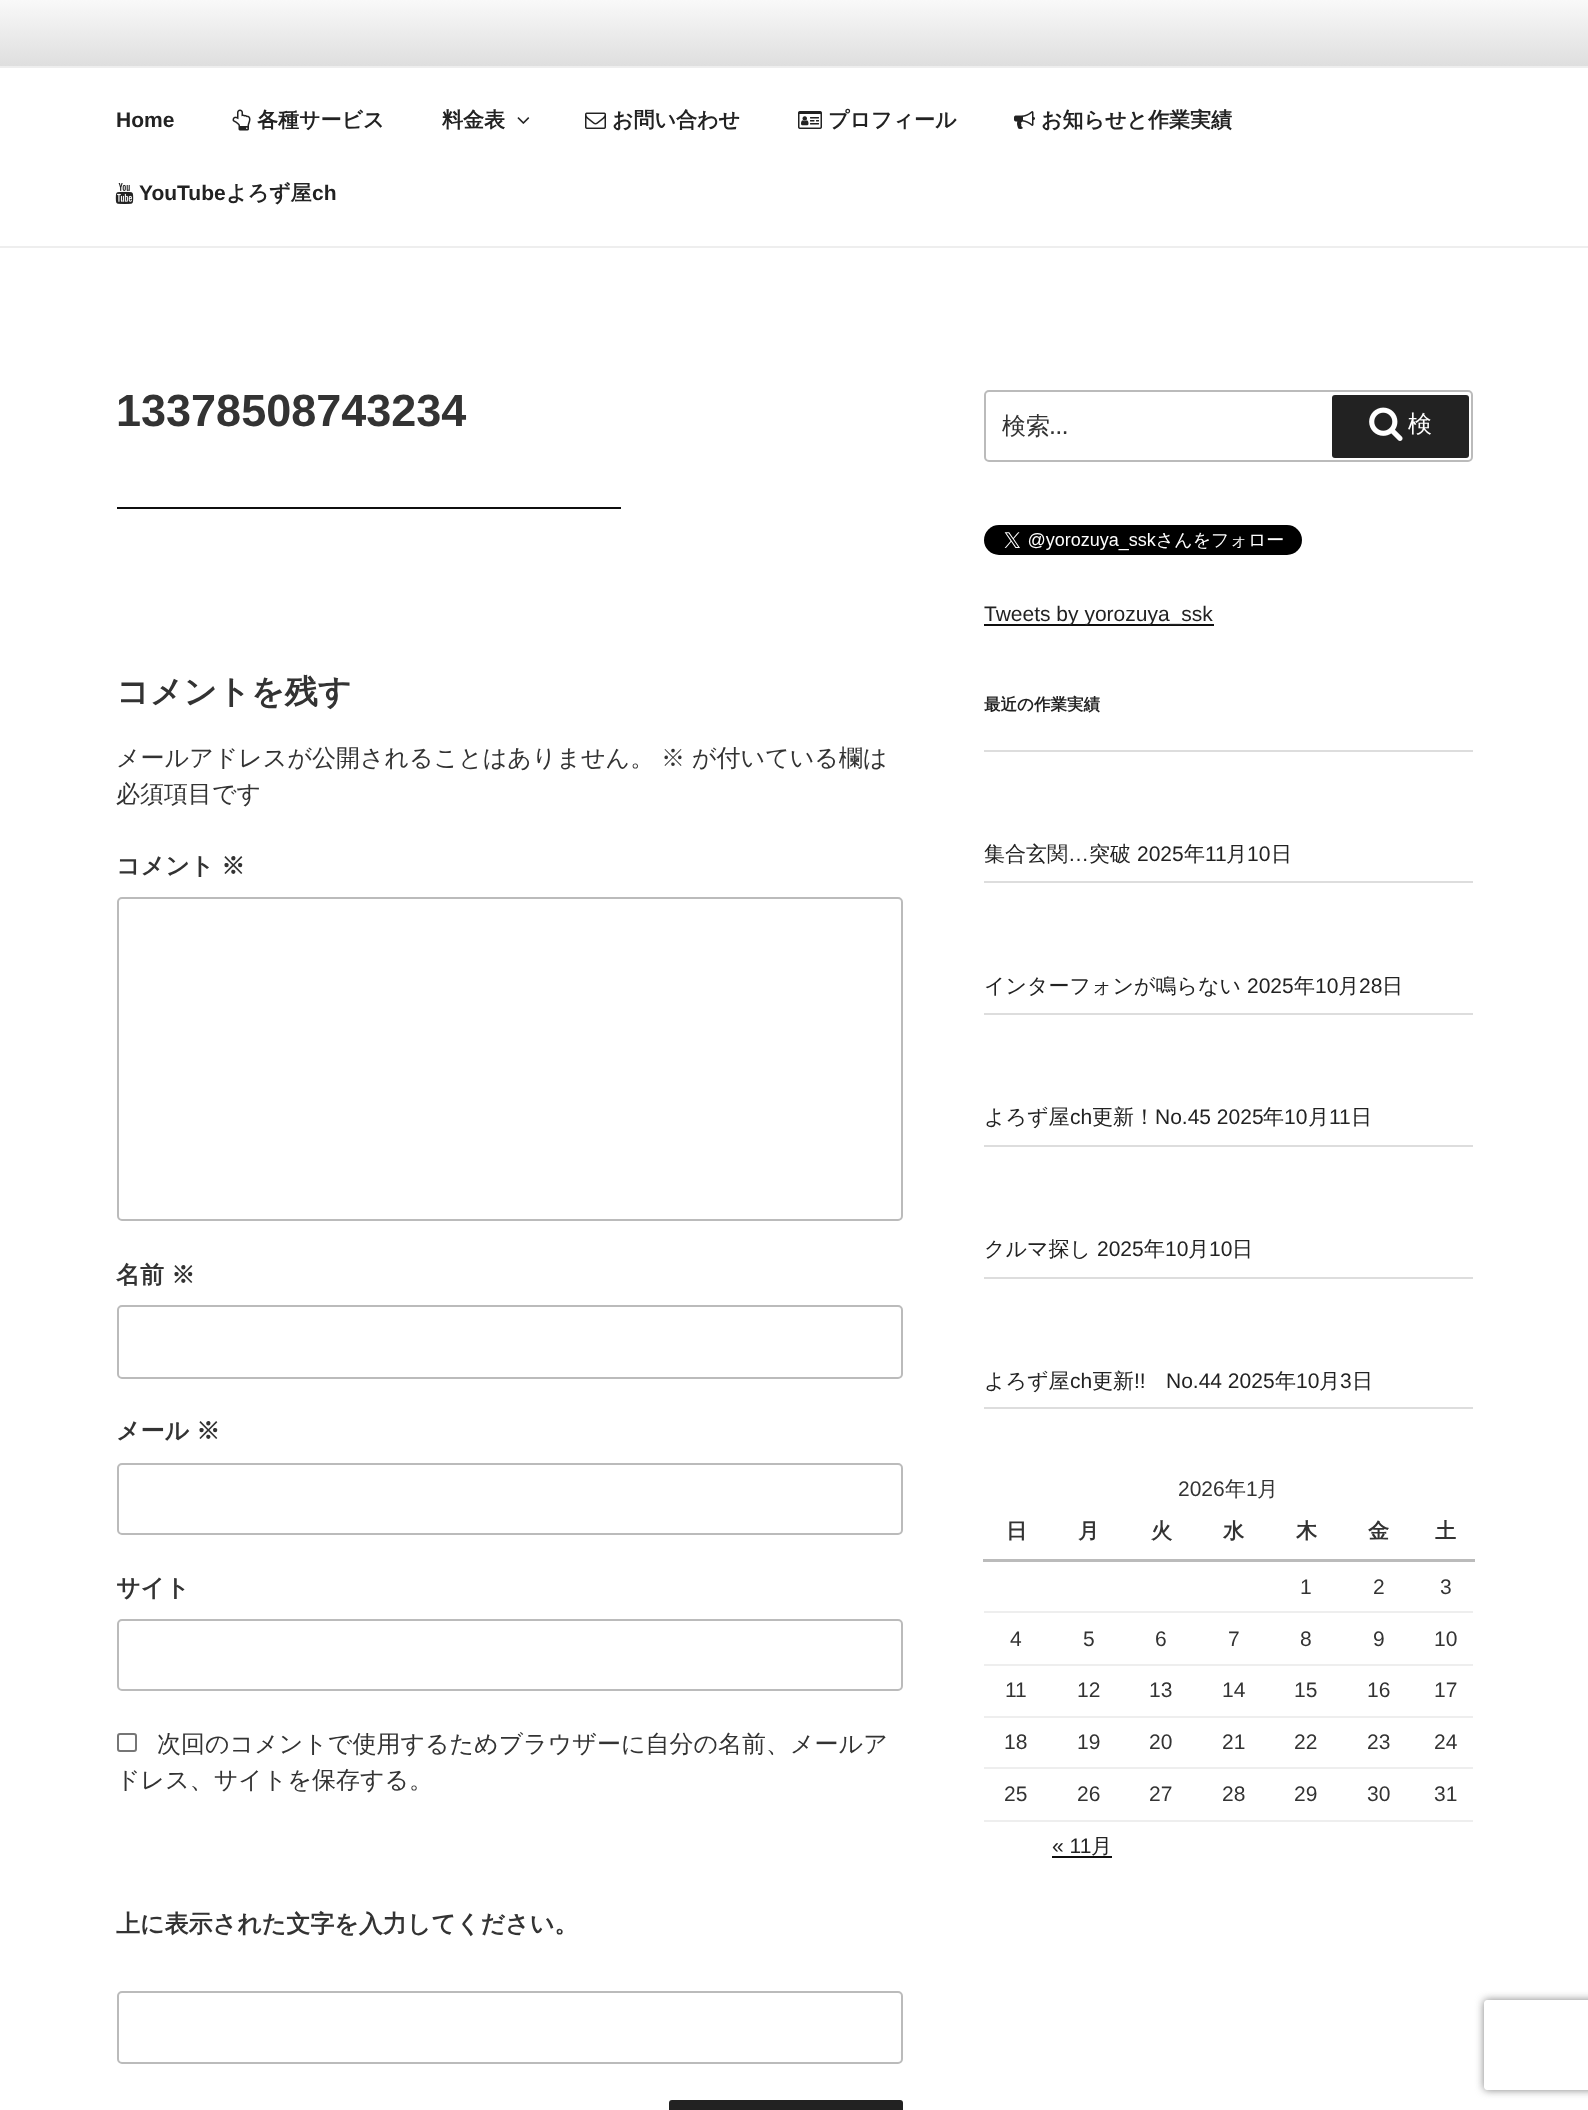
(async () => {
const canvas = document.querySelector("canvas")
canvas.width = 1588
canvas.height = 2110
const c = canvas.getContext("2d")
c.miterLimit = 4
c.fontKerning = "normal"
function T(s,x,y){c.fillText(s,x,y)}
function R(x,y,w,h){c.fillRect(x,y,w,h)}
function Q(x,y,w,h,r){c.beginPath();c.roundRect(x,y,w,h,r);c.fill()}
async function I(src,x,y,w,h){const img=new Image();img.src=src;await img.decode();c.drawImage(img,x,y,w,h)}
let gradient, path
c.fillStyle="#fff"
R(0,0,1588,2110)
gradient = c.createLinearGradient(794,0,794,248)
gradient.addColorStop(0,"#f9f9f9")
gradient.addColorStop(.75,"#aeaeae")
gradient.addColorStop(1,"#aeaeae")
c.fillStyle = gradient
R(0,0,1588,66)
c.fillStyle="#eee"
R(0,66,1588,2)
R(0,246,1588,2)
c.font="bold 21px Liberation Sans"
c.fillStyle="#222"
T("Home",116,127)
await I("1.png",232,109,19,22)
c.font="bold 21px WenQuanYi Zen Hei"
T("各種サービス",257,127)
T("料金表",442,127)
await I("2.png",517,117,13,7)
await I("3.png",585,112,21,17)
T("お問い合わせ",612,127)
await I("4.png",798,111,24,18)
T("プロフィール",828,127)
await I("5.png",1014,111,21,18)
T("お知らせと作業実績",1041,127)
await I("6.png",115,183,19,21)
c.font="bold 21px Liberation Sans"
T("YouTube",139,200)
c.font="bold 21px WenQuanYi Zen Hei"
T("よろず屋",226,200)
c.font="bold 21px Liberation Sans"
T("ch",312,200)
c.font="bold 45px Liberation Sans"
c.fillStyle="#333"
T("13378508743234",116,426)
c.fillStyle="#0f0f0f"
R(117,507,504,2)
c.font="bold 33px WenQuanYi Zen Hei"
c.fillStyle="#333"
T("コメントを残す",116,703)
c.font="500 24px WenQuanYi Zen Hei"
T("メールアドレスが公開されることはありません。",116,766)
T("※",661,766)
T("が付いている欄は",692,766)
T("必須項目です",116,802)
c.font="bold 24px WenQuanYi Zen Hei"
T("コメント",116,874)
T("※",221,874)
c.beginPath()
c.roundRect(118,898,784,322,4)
c.strokeStyle="#bbb"
c.lineWidth=2
c.stroke()
T("名前",116,1283)
T("※",171,1283)
c.beginPath()
c.roundRect(118,1306,784,72,4)
c.stroke()
T("メール",116,1439)
T("※",196,1439)
c.beginPath()
c.roundRect(118,1464,784,70,4)
c.stroke()
T("サイト",116,1596)
c.beginPath()
c.roundRect(118,1620,784,70,4)
c.stroke()
c.beginPath()
c.roundRect(118,1734,18,17,2)
c.strokeStyle="#767676"
c.stroke()
c.font="500 24px WenQuanYi Zen Hei"
T("次回のコメントで使用するためブラウザーに自分の名前、メールア",157,1752)
T("ドレス、サイトを保存する。",116,1788)
c.font="bold 24px WenQuanYi Zen Hei"
T("上に表示された文字を入力してください。",116,1932)
c.beginPath()
c.roundRect(118,1992,784,71,4)
c.strokeStyle="#bbb"
c.stroke()
c.fillStyle="#222"
Q(669,2100,234,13,3)
c.beginPath()
c.roundRect(985,391,487,70,4)
c.stroke()
c.font="500 24px WenQuanYi Zen Hei"
c.fillStyle="#333"
T("検索",1002,434)
c.font="24px Libre Franklin"
T("…",1050,434)
c.fillStyle="#222"
Q(1332,395,137,63,3)
await I("7.png",1369,407,34,34)
c.font="500 24px WenQuanYi Zen Hei"
c.fillStyle="#fff"
T("検",1408,432)
await I("8.png",984,525,318,30)
c.fillStyle="#0f0f0f"
R(984,624,230,2)
c.font="21px Liberation Sans"
c.fillStyle="#222"
T("Tweets by yorozuya_ssk",984,621)
c.font="bold 16.5px WenQuanYi Zen Hei"
T("最近の作業実績",984,710)
c.fillStyle="#ddd"
R(984,750,489,2)
R(984,881,489,2)
c.font="500 21px WenQuanYi Zen Hei"
c.fillStyle="#222"
T("集合玄関",984,861)
c.font="21px Liberation Sans"
T("…",1068,861)
c.font="500 21px WenQuanYi Zen Hei"
T("突破",1089,861)
c.font="21px Liberation Sans"
T("2025",1137,861)
c.font="500 21px WenQuanYi Zen Hei"
T("年",1184,861)
c.font="21px Liberation Sans"
T("11",1205,861)
c.font="500 21px WenQuanYi Zen Hei"
T("月",1226,861)
c.font="21px Liberation Sans"
T("10",1247,861)
c.font="500 21px WenQuanYi Zen Hei"
T("日",1271,861)
c.fillStyle="#ddd"
R(984,1013,489,2)
c.fillStyle="#222"
T("インターフォンが鳴らない",984,993)
c.font="21px Liberation Sans"
T("2025",1247,993)
c.font="500 21px WenQuanYi Zen Hei"
T("年",1294,993)
c.font="21px Liberation Sans"
T("10",1315,993)
c.font="500 21px WenQuanYi Zen Hei"
T("月",1338,993)
c.font="21px Liberation Sans"
T("28",1359,993)
c.font="500 21px WenQuanYi Zen Hei"
T("日",1382,993)
c.fillStyle="#ddd"
R(984,1145,489,2)
c.fillStyle="#222"
T("よろず屋",984,1124)
c.font="21px Liberation Sans"
T("ch",1070,1124)
c.font="500 21px WenQuanYi Zen Hei"
T("更新！",1092,1124)
c.font="21px Liberation Sans"
T("No.45 2025",1155,1124)
c.font="500 21px WenQuanYi Zen Hei"
T("年",1263,1124)
c.font="21px Liberation Sans"
T("10",1284,1124)
c.font="500 21px WenQuanYi Zen Hei"
T("月",1308,1124)
c.font="21px Liberation Sans"
T("11",1329,1124)
c.font="500 21px WenQuanYi Zen Hei"
T("日",1351,1124)
c.fillStyle="#ddd"
R(984,1277,489,2)
c.fillStyle="#222"
T("クルマ探し",984,1256)
c.font="21px Liberation Sans"
T("2025",1097,1256)
c.font="500 21px WenQuanYi Zen Hei"
T("年",1144,1256)
c.font="21px Liberation Sans"
T("10",1165,1256)
c.font="500 21px WenQuanYi Zen Hei"
T("月",1188,1256)
c.font="21px Liberation Sans"
T("10",1209,1256)
c.font="500 21px WenQuanYi Zen Hei"
T("日",1232,1256)
c.fillStyle="#ddd"
R(984,1407,489,2)
c.fillStyle="#222"
T("よろず屋",984,1388)
c.font="21px Liberation Sans"
T("ch",1070,1388)
c.font="500 21px WenQuanYi Zen Hei"
T("更新",1092,1388)
c.font="21px Liberation Sans"
T("!!",1134,1388)
T("No.44 2025",1166,1388)
c.font="500 21px WenQuanYi Zen Hei"
T("年",1275,1388)
c.font="21px Liberation Sans"
T("10",1296,1388)
c.font="500 21px WenQuanYi Zen Hei"
T("月",1319,1388)
c.font="21px Liberation Sans"
T("3",1340,1388)
c.font="500 21px WenQuanYi Zen Hei"
T("日",1352,1388)
c.font="21px Liberation Sans"
c.fillStyle="#333"
T("2026",1178,1496)
c.font="500 21px WenQuanYi Zen Hei"
T("年",1225,1496)
c.font="21px Liberation Sans"
T("1",1246,1496)
c.font="500 21px WenQuanYi Zen Hei"
T("月",1257,1496)
c.font="bold 21px WenQuanYi Zen Hei"
T("日",1006,1538)
T("月",1078,1538)
T("火",1151,1538)
T("水",1223,1538)
T("木",1296,1538)
T("金",1368,1538)
c.fillStyle="#bbb"
R(983,1559,492,3)
c.fillStyle="#333"
T("土",1435,1538)
c.fillStyle="#eee"
R(984,1611,489,2)
c.font="21px Liberation Sans"
c.fillStyle="#333"
T("1",1300,1594)
T("2",1373,1594)
T("3",1440,1594)
c.fillStyle="#eee"
R(984,1664,489,2)
c.fillStyle="#333"
T("4",1010,1646)
T("5",1083,1646)
T("6",1155,1646)
T("7",1228,1646)
T("8",1300,1646)
T("9",1373,1646)
T("10",1434,1646)
c.fillStyle="#eee"
R(984,1716,489,2)
c.fillStyle="#333"
T("11",1005,1697)
T("12",1077,1697)
T("13",1149,1697)
T("14",1222,1697)
T("15",1294,1697)
T("16",1367,1697)
T("17",1434,1697)
c.fillStyle="#eee"
R(984,1767,489,2)
c.fillStyle="#333"
T("18",1004,1749)
T("19",1077,1749)
T("20",1149,1749)
T("21",1222,1749)
T("22",1294,1749)
T("23",1367,1749)
T("24",1434,1749)
c.fillStyle="#eee"
R(984,1820,489,2)
c.fillStyle="#333"
T("25",1004,1801)
T("26",1077,1801)
T("27",1149,1801)
T("28",1222,1801)
T("29",1294,1801)
T("30",1367,1801)
T("31",1434,1801)
c.fillStyle="#222"
T("« 11",1052,1853)
c.font="500 21px WenQuanYi Zen Hei"
T("月",1091,1853)
c.fillStyle="#0f0f0f"
R(1052,1856,60,2)
c.save()
path = new Path2D("M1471 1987h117v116h-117zm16 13h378c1.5 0 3 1.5 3 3v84c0 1.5-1.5 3-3 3h-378c-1.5 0-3-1.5-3-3v-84c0-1.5 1.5-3 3-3z")
c.clip(path,"evenodd")
c.fillStyle="#808080"
c.filter="blur(4px)"
c.beginPath()
c.roundRect(1484,2000,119,90,3)
c.fill()
c.filter="none"
c.restore()
})()
